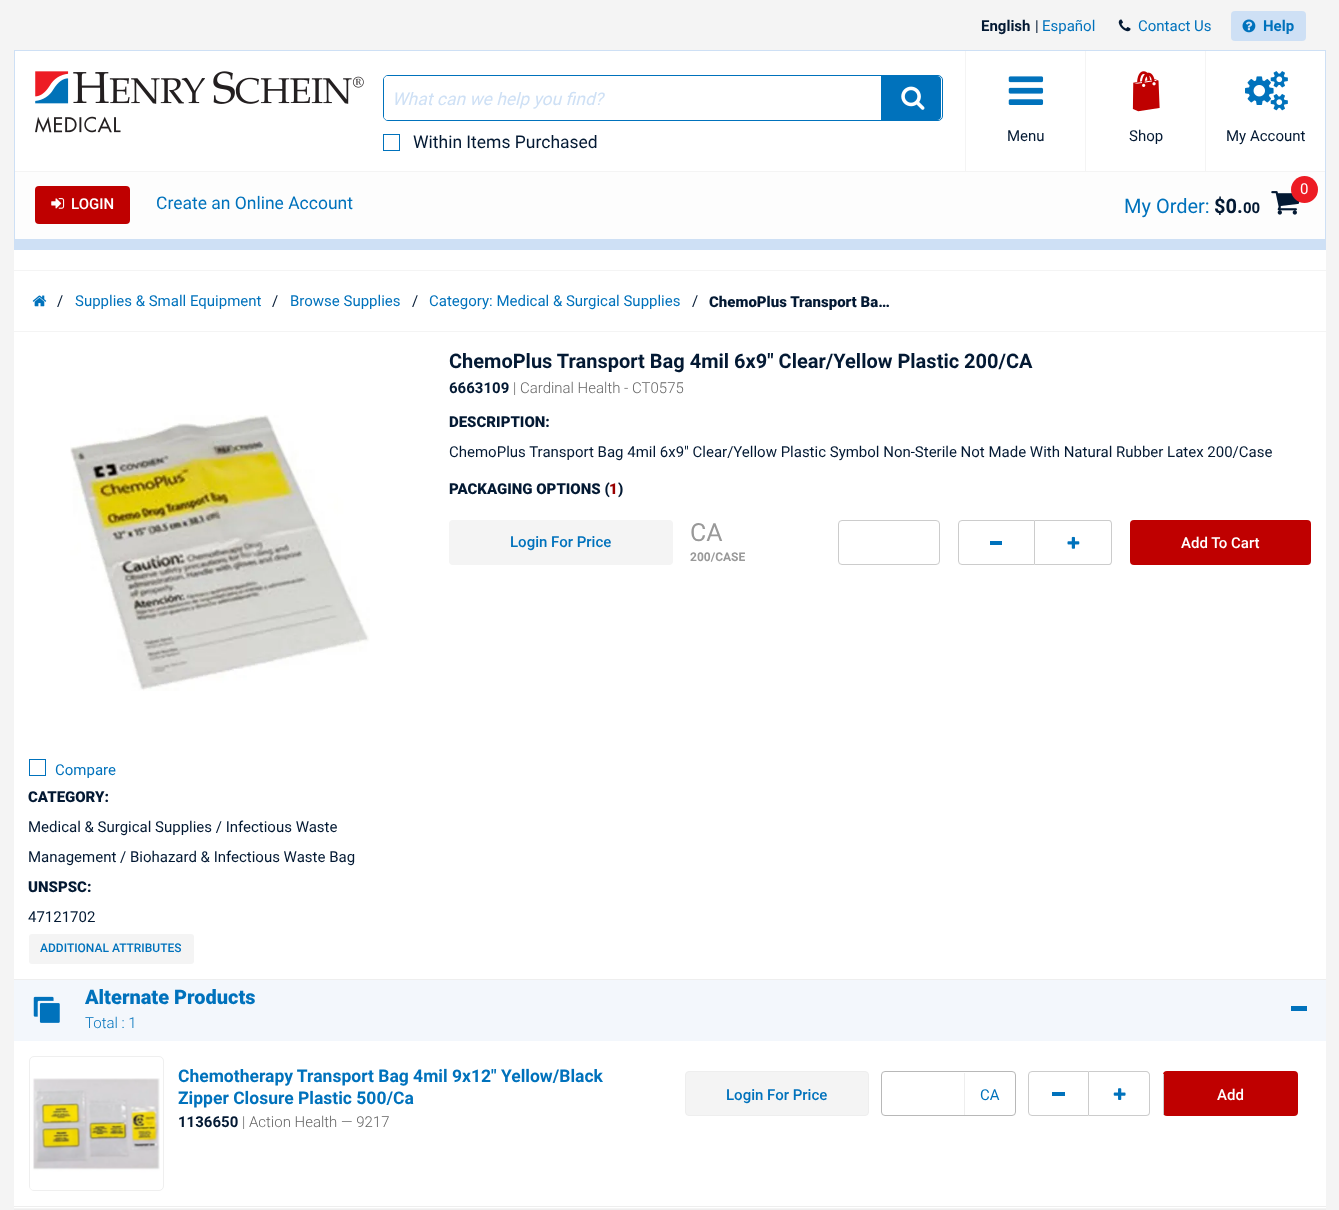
(async () => {
const canvas = document.querySelector("canvas")
canvas.width = 1339
canvas.height = 1210
const c = canvas.getContext("2d")
c.miterLimit = 4
c.fontKerning = "normal"
function T(s,x,y){c.fillText(s,x,y)}
function R(x,y,w,h){c.fillRect(x,y,w,h)}
function Q(x,y,w,h,r){c.beginPath();c.roundRect(x,y,w,h,r);c.fill()}
async function I(src,x,y,w,h){const img=new Image();img.src=src;await img.decode();c.drawImage(img,x,y,w,h)}
let path
c.fillStyle="#f4f4f4"
R(0,0,1339,1210)
c.font="bold 15px Roboto"
c.fillStyle="#031933"
T("English",981,31)
c.font="15px Roboto"
T("|",1035,31)
c.fillStyle="#0072bc"
T("Español",1042,31)
await I("1.png",1118,19,13,13)
T("Contact Us",1138,31)
c.fillStyle="#cee0f5"
Q(1231,11,75,30,4)
await I("2.png",1242,19,14,14)
c.font="bold 15px Roboto"
c.fillStyle="#0072bc"
T("Help",1263,31)
c.fillStyle="#cee0f5"
R(14,240,1312,10)
c.strokeStyle="#cee0f5"
c.strokeRect(14.5,50.5,1311,189)
c.fillStyle="#fff"
R(15,51,1310,120)
await I("3.png",35,71,329,62)
c.beginPath()
c.roundRect(383.5,75.5,559,45,4.5)
c.strokeStyle="#0072bc"
c.stroke()
Q(384,76,557,44,4)
c.font="italic 17.5px Roboto"
c.fillStyle="#cee0f5"
T("What can we help you find?",392,105)
c.fillStyle="#0072bc"
c.beginPath()
c.roundRect(881,76,60,44,[0,4,4,0])
c.fill()
await I("4.png",901,86,24,24)
c.strokeRect(383.5,134.5,16,16)
c.font="17.5px Roboto"
c.fillStyle="#031933"
T("Within Items Purchased",413,148)
c.fillStyle="#f4f4f4"
R(965,51,1,120)
await I("5.png",1008,76,36,29)
c.font="15px Roboto"
c.fillStyle="#031933"
T("Menu",1007,141)
c.fillStyle="#f4f4f4"
R(1085,51,1,120)
await I("6.png",1132,71,28,41)
c.fillStyle="#031933"
T("Shop",1129,141)
c.fillStyle="#f4f4f4"
R(1205,51,1,120)
await I("7.png",1245,71,43,40)
c.fillStyle="#031933"
T("My Account",1226,141)
c.fillStyle="#fdfdfd"
R(15,172,1310,67)
c.fillStyle="#bf0000"
Q(35,186,95,38,4)
await I("8.png",51,198,14,11)
c.font="500 15px Roboto"
c.fillStyle="#fff"
T("LOGIN",71,209)
c.font="17.5px Roboto"
c.fillStyle="#0072bc"
T("Create an Online Account",156,209)
await I("9.png",1271,191,29,24)
c.fillStyle="#ed1c24"
c.beginPath()
c.arc(1304.5,189.5,13.5,0,7)
c.fill()
c.font="15px Roboto"
c.fillStyle="#fff"
T("0",1300,194)
c.font="20px Roboto"
c.fillStyle="#0072bc"
T("My Order:",1124,213)
c.font="bold 20px Roboto"
c.fillStyle="#031933"
T("$0.",1214,213)
c.font="bold 15px Roboto"
T("00",1243,213)
c.fillStyle="#fff"
R(14,250,1312,958)
c.fillStyle="#f4f4f4"
R(14,270,1312,1)
R(14,331,1312,1)
await I("10.png",32,295,15,12)
c.font="15px Roboto"
c.fillStyle="#031933"
T("/",57,306)
c.fillStyle="#0072bc"
T("Supplies & Small Equipment",75,306)
c.fillStyle="#031933"
T("/",272,306)
c.fillStyle="#0072bc"
T("Browse Supplies",290,306)
c.fillStyle="#031933"
T("/",412,306)
c.fillStyle="#0072bc"
T("Category: Medical & Surgical Supplies",429,306)
c.fillStyle="#031933"
T("/",692,306)
c.font="900 15px Roboto"
T("ChemoPlus Transport Ba…",709,307)
c.font="bold 20px Roboto"
T("ChemoPlus Transport Bag 4mil 6x9\" Clear/Yellow Plastic 200/CA",449,368)
c.font="bold 15px Roboto"
T("6663109",449,393)
c.font="300 15px Roboto"
c.fillStyle="#666"
T("| Cardinal Health - CT0575",513,393)
c.font="900 15px Roboto"
c.fillStyle="#031933"
T("DESCRIPTION:",449,427)
c.font="15px Roboto"
T("ChemoPlus Transport Bag 4mil 6x9\" Clear/Yellow Plastic Symbol Non-Sterile Not Made With Natural Rubber Latex 200/Case",449,457)
c.font="900 15px Roboto"
T("PACKAGING OPTIONS (",449,494)
c.fillStyle="#900"
T("1",609,494)
c.fillStyle="#031933"
T(")",618,494)
c.fillStyle="#f4f4f4"
Q(449,520,224,45,4)
c.font="500 15px Roboto"
c.fillStyle="#0072bc"
T("Login For Price",510,547)
c.font="25px Roboto"
c.fillStyle="#999"
T("CA",690,541)
c.font="bold 12px Roboto"
T("200/CASE",690,561)
c.beginPath()
c.roundRect(838.5,520.5,101,44,3.5)
c.strokeStyle="#ccc"
c.stroke()
c.beginPath()
c.roundRect(958.5,520.5,76,44,[3.5,0,0,3.5])
c.stroke()
c.fillStyle="#0072bc"
R(990,541,12,4)
c.fillStyle="#ccc"
path = new Path2D("M1035 520h74c2 0 3 2 3 4v37c0 2-1 4-3 4h-74zm0 1h74c1 0 2 1 2 3v37c0 2-1 3-2 3h-74z")
c.fill(path,"evenodd")
await I("11.png",1067,536,13,13)
c.fillStyle="#bf0000"
Q(1130,520,181,45,4)
c.font="500 15px Roboto"
c.fillStyle="#fff"
T("Add To Cart",1181,548)
await I("12.png",70,415,300,276)
c.strokeStyle="#0072bc"
c.strokeRect(29.5,759.5,16,16)
c.font="15px Roboto"
c.fillStyle="#0072bc"
T("Compare",55,775)
c.font="900 15px Roboto"
c.fillStyle="#031933"
T("CATEGORY:",28,802)
c.font="15px Roboto"
T("Medical & Surgical Supplies / Infectious Waste",28,832)
T("Management / Biohazard & Infectious Waste Bag",28,862)
c.font="900 15px Roboto"
T("UNSPSC:",28,892)
c.font="15px Roboto"
T("47121702",28,922)
c.fillStyle="#f4f4f4"
Q(29,934,165,30,3)
c.font="500 12px Roboto"
c.fillStyle="#0072bc"
T("ADDITIONAL ATTRIBUTES",40,952)
c.fillStyle="#f3f7fc"
R(14,980,1312,61)
c.fillStyle="#eee"
R(14,979,1312,1)
await I("13.png",33,996,27,27)
c.font="900 20px Roboto"
c.fillStyle="#0072bc"
T("Alternate Products",85,1004)
R(1291,1006,16,5)
c.font="300 15px Roboto"
T("Total : 1",85,1028)
c.fillStyle="#eee"
R(14,1206,1312,1)
c.beginPath()
c.roundRect(29.5,1056.5,134,134,4.5)
c.strokeStyle="#efefef"
c.stroke()
await I("14.png",30,1078,130,112)
c.font="bold 17.5px Roboto"
c.fillStyle="#0072bc"
T("Chemotherapy Transport Bag 4mil 9x12\" Yellow/Black",178,1082)
T("Zipper Closure Plastic 500/Ca",178,1104)
c.font="bold 15px Roboto"
c.fillStyle="#031933"
T("1136650",178,1127)
c.font="300 15px Roboto"
c.fillStyle="#666"
T("| Action Health — 9217",242,1127)
c.fillStyle="#f4f4f4"
c.beginPath()
c.roundRect(685.5,1071.5,183,44,3.5)
c.fill()
c.strokeStyle="#eee"
c.stroke()
c.font="500 15px Roboto"
c.fillStyle="#0072bc"
T("Login For Price",726,1100)
c.beginPath()
c.roundRect(881.5,1071.5,134,44,3.5)
c.strokeStyle="#b8b8b8"
c.stroke()
c.fillStyle="#eee"
R(964,1073,1,42)
c.font="15px Roboto"
c.fillStyle="#0072bc"
T("CA",980,1100)
c.beginPath()
c.roundRect(1028.5,1071.5,60,44,[3.5,0,0,3.5])
c.strokeStyle="#ccc"
c.stroke()
R(1052,1092,13,4)
c.fillStyle="#ccc"
path = new Path2D("M1089 1071h57c2 0 4 2 4 4v37c0 3-2 4-4 4h-57zm0 1h57c2 0 3 2 3 3v37c0 2-1 3-3 3h-57z")
c.fill(path,"evenodd")
await I("15.png",1113,1088,13,12)
c.fillStyle="#bf0000"
Q(1163,1071,135,45,4)
c.fillStyle="#ccc"
R(1163,1074,1,41)
c.font="500 15px Roboto"
c.fillStyle="#fff"
T("Add",1217,1100)
c.fillStyle="#eee"
R(14,1209,1312,1)
})()
